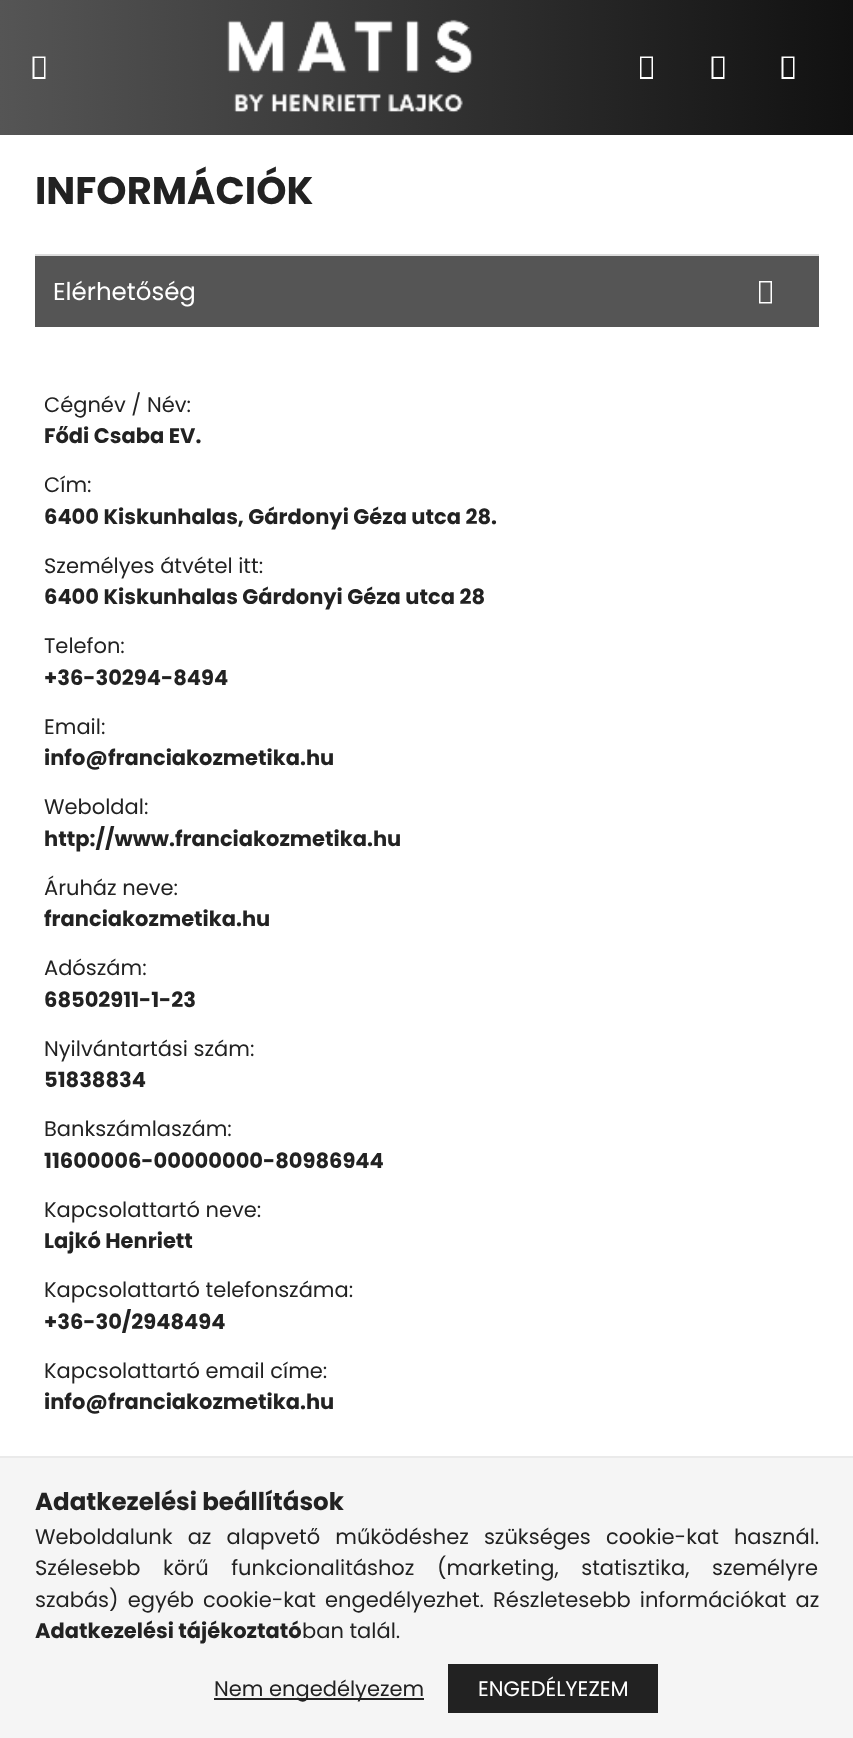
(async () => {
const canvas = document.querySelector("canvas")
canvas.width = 853
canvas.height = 1738
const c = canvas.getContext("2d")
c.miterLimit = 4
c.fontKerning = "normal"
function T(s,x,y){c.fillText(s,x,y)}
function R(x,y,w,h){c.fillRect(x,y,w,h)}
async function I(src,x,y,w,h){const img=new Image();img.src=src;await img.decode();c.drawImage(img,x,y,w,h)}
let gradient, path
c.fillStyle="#fff"
R(0,0,853,1738)
gradient = c.createLinearGradient(0,67,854,67)
gradient.addColorStop(0,"#555")
gradient.addColorStop(1,"#111")
c.fillStyle = gradient
R(0,0,853,135)
c.fillStyle="#fff"
path = new Path2D("M32.5 79v-22.5h13v22.5zm2-2h9.5v-19h-9.5z")
c.fill(path)
await I("1.png",227,19,246,94)
path = new Path2D("M640 79v-22.5h13v22.5zm1.5-2h10v-19h-10z")
c.fill(path)
path = new Path2D("M711.5 79v-22.5h13v22.5zm2-2h9.5v-19h-9.5z")
c.fill(path)
path = new Path2D("M781.5 79v-22.5h13v22.5zm2-2h9.5v-19h-9.5z")
c.fill(path)
c.font="bold 38.5px Poppins"
c.fillStyle="#222"
T("INFORMÁCIÓK",35,204)
c.fillStyle="#555"
R(35,256,784,71)
c.fillStyle="#ddd"
R(35,254,784,2)
c.font="24.5px Poppins"
c.fillStyle="#fff"
T("Elérhetőség",53,300)
path = new Path2D("M759 303.5v-22.5h13v22.5zm1.5-1.5h10v-19.5h-10z")
c.fill(path)
c.font="21px Poppins"
c.fillStyle="#222"
T("Cégnév / Név:",44,412)
c.font="bold 21px Poppins"
T("Fődi Csaba EV.",44,443)
c.font="21px Poppins"
T("Cím:",44,492)
c.font="bold 21px Poppins"
T("6400 Kiskunhalas, Gárdonyi Géza utca 28.",44,524)
c.font="21px Poppins"
T("Személyes átvétel itt:",44,573)
c.font="bold 21px Poppins"
T("6400 Kiskunhalas Gárdonyi Géza utca 28",44,604)
c.font="21px Poppins"
T("Telefon:",44,653)
c.font="bold 21px Poppins"
T("+36-30294-8494",44,685)
c.font="21px Poppins"
T("Email:",44,734)
c.font="bold 21px Poppins"
T("info@franciakozmetika.hu",44,765)
c.font="21px Poppins"
T("Weboldal:",44,814)
c.font="bold 21px Poppins"
T("http://www.franciakozmetika.hu",44,846)
c.font="21px Poppins"
T("Áruház neve:",44,895)
c.font="bold 21px Poppins"
T("franciakozmetika.hu",44,926)
c.font="21px Poppins"
T("Adószám:",44,975)
c.font="bold 21px Poppins"
T("68502911-1-23",44,1007)
c.font="21px Poppins"
T("Nyilvántartási szám:",44,1056)
c.font="bold 21px Poppins"
T("51838834",44,1087)
c.font="21px Poppins"
T("Bankszámlaszám:",44,1136)
c.font="bold 21px Poppins"
T("11600006-00000000-80986944",44,1168)
c.font="21px Poppins"
T("Kapcsolattartó neve:",44,1217)
c.font="bold 21px Poppins"
T("Lajkó Henriett",44,1248)
c.font="21px Poppins"
T("Kapcsolattartó telefonszáma:",44,1297)
c.font="bold 21px Poppins"
T("+36-30/2948494",44,1329)
c.font="21px Poppins"
T("Kapcsolattartó email címe:",44,1378)
c.font="bold 21px Poppins"
T("info@franciakozmetika.hu",44,1409)
c.fillStyle="#f5f5f5"
R(0,1458,853,280)
c.fillStyle="#eaeaea"
R(0,1456,853,2)
c.font="bold 24.5px Poppins"
c.fillStyle="#222"
T("Adatkezelési beállítások",35,1510)
c.wordSpacing="9.5px"
c.font="21px Poppins"
T("Weboldalunk az alapvető működéshez szükséges cookie-kat használ.",35,1544)
c.wordSpacing="17px"
T("Szélesebb körű funkcionalitáshoz (marketing, statisztika, személyre",35,1575)
c.wordSpacing="3.5px"
T("szabás) egyéb cookie-kat engedélyezhet. Részletesebb információkat az",35,1607)
c.wordSpacing="0px"
c.font="bold 21px Poppins"
T("Adatkezelési tájékoztató",35,1638)
c.font="21px Poppins"
T("ban talál.",302,1638)
R(214,1698,210,2)
T("Nem engedélyezem",214,1696)
gradient = c.createLinearGradient(28,1689,658,1689)
gradient.addColorStop(0,"#555")
gradient.addColorStop(.33,"#111")
gradient.addColorStop(.67,"#222")
gradient.addColorStop(1,"#222")
c.fillStyle = gradient
R(448,1664,210,49)
c.fillStyle="#fff"
T("ENGEDÉLYEZEM",478,1696)
})()
